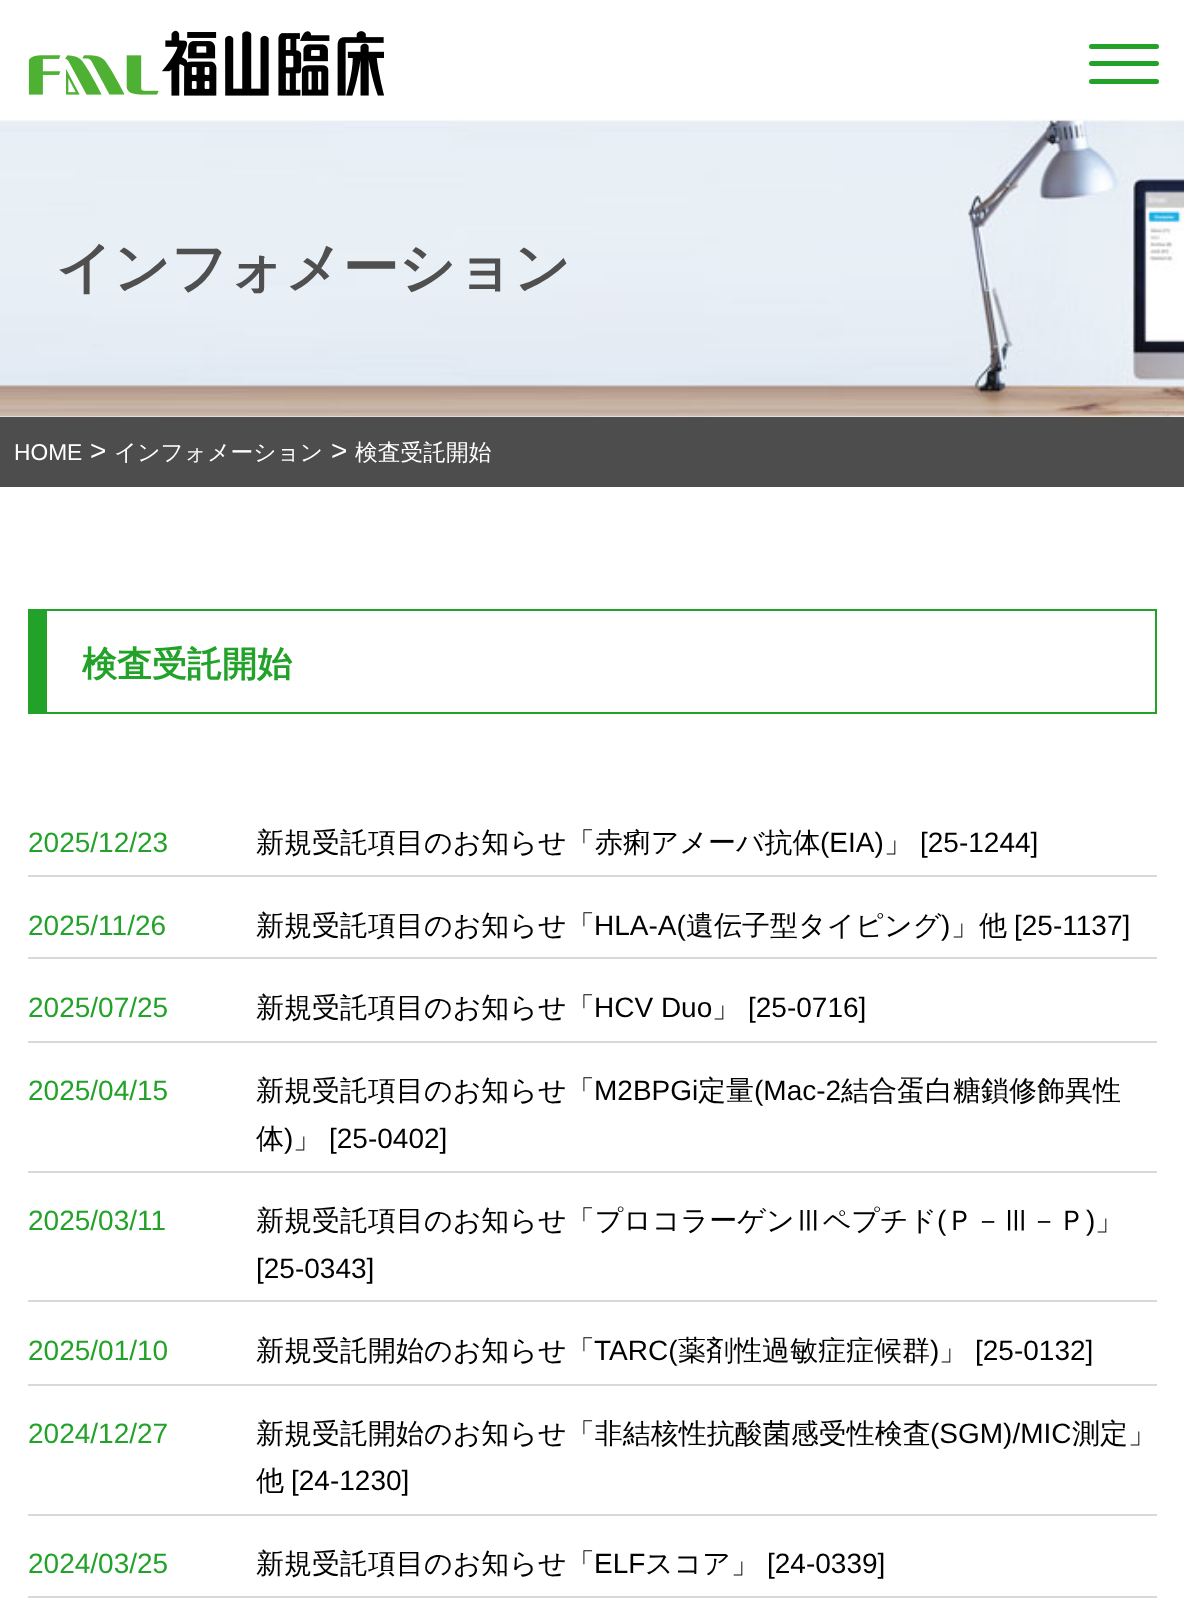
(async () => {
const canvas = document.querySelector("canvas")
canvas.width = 1184
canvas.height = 1603
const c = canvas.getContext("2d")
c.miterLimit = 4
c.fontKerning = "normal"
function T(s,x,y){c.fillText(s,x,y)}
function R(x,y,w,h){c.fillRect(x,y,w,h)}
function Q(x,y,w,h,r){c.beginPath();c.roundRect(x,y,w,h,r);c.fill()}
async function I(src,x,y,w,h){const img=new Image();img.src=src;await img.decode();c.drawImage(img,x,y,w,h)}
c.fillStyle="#fff"
R(0,0,1184,1603)
await I("1.png",28,30,356,66)
c.fillStyle="#22a229"
Q(1089,44,70,5,2.5)
Q(1089,61,70,5,2.5)
Q(1089,79,70,5,2.5)
await I("2.png",0,119,1184,298)
c.font="bold 56px WenQuanYi Zen Hei"
c.fillStyle="#4f4f4f"
T("インフォメーション",56,287)
c.fillStyle="#4d4d4d"
R(0,417,1184,70)
c.font="22.75px Liberation Sans"
c.fillStyle="#fff"
T("HOME",14,460)
c.font="28px Liberation Sans"
T(">",90,460)
c.font="500 22.75px WenQuanYi Zen Hei"
T("インフォメーション",114,460)
c.font="28px Liberation Sans"
T(">",331,460)
c.font="500 22.75px WenQuanYi Zen Hei"
T("検査受託開始",355,460)
c.fillStyle="#22a229"
R(47,609,1110,2)
R(1155,609,2,105)
R(47,712,1110,2)
R(28,609,19,105)
c.font="bold 35px WenQuanYi Zen Hei"
T("検査受託開始",82,676)
c.fillStyle="#d9d9d9"
R(28,875,1129,2)
c.font="28px Liberation Sans"
c.fillStyle="#22a229"
T("2025/12/23",28,852)
c.font="500 28px WenQuanYi Zen Hei"
c.fillStyle="#000"
T("新規受託項目のお知らせ「赤痢アメーバ抗体",256,852)
c.font="28px Liberation Sans"
T("(EIA)",820,852)
c.font="500 28px WenQuanYi Zen Hei"
T("」",884,852)
c.font="28px Liberation Sans"
T("[25-1244]",920,852)
c.fillStyle="#d9d9d9"
R(28,957,1129,2)
c.fillStyle="#22a229"
T("2025/11/26",28,935)
c.font="500 28px WenQuanYi Zen Hei"
c.fillStyle="#000"
T("新規受託項目のお知らせ「",256,935)
c.font="28px Liberation Sans"
T("HLA-A(",594,935)
c.font="500 28px WenQuanYi Zen Hei"
T("遺伝子型タイピング",686,935)
c.font="28px Liberation Sans"
T(")",941,935)
c.font="500 28px WenQuanYi Zen Hei"
T("」他",951,935)
c.font="28px Liberation Sans"
T("[25-1137]",1014,935)
c.fillStyle="#d9d9d9"
R(28,1041,1129,2)
c.fillStyle="#22a229"
T("2025/07/25",28,1017)
c.font="500 28px WenQuanYi Zen Hei"
c.fillStyle="#000"
T("新規受託項目のお知らせ「",256,1017)
c.font="28px Liberation Sans"
T("HCV Duo",594,1017)
c.font="500 28px WenQuanYi Zen Hei"
T("」",712,1017)
c.font="28px Liberation Sans"
T("[25-0716]",748,1017)
c.fillStyle="#d9d9d9"
R(28,1171,1129,2)
c.fillStyle="#22a229"
T("2025/04/15",28,1100)
c.font="500 28px WenQuanYi Zen Hei"
c.fillStyle="#000"
T("新規受託項目のお知らせ「",256,1100)
c.font="28px Liberation Sans"
T("M2BPGi",594,1100)
c.font="500 28px WenQuanYi Zen Hei"
T("定量",698,1100)
c.font="28px Liberation Sans"
T("(Mac-2",754,1100)
c.font="500 28px WenQuanYi Zen Hei"
T("結合蛋白糖鎖修飾異性",841,1100)
T("体",256,1148)
c.font="28px Liberation Sans"
T(")",284,1148)
c.font="500 28px WenQuanYi Zen Hei"
T("」",293,1148)
c.font="28px Liberation Sans"
T("[25-0402]",329,1148)
c.fillStyle="#d9d9d9"
R(28,1300,1129,2)
c.fillStyle="#22a229"
T("2025/03/11",28,1230)
c.font="500 28px WenQuanYi Zen Hei"
c.fillStyle="#000"
T("新規受託項目のお知らせ「プロコラーゲンⅢペプチド",256,1230)
c.font="28px Liberation Sans"
T("(",937,1230)
c.font="500 28px WenQuanYi Zen Hei"
T("Ｐ－Ⅲ－Ｐ",946,1230)
c.font="28px Liberation Sans"
T(")",1086,1230)
c.font="500 28px WenQuanYi Zen Hei"
T("」",1095,1230)
c.font="28px Liberation Sans"
T("[25-0343]",256,1278)
c.fillStyle="#d9d9d9"
R(28,1384,1129,2)
c.fillStyle="#22a229"
T("2025/01/10",28,1360)
c.font="500 28px WenQuanYi Zen Hei"
c.fillStyle="#000"
T("新規受託開始のお知らせ「",256,1360)
c.font="28px Liberation Sans"
T("TARC(",594,1360)
c.font="500 28px WenQuanYi Zen Hei"
T("薬剤性過敏症症候群",678,1360)
c.font="28px Liberation Sans"
T(")",930,1360)
c.font="500 28px WenQuanYi Zen Hei"
T("」",939,1360)
c.font="28px Liberation Sans"
T("[25-0132]",975,1360)
c.fillStyle="#d9d9d9"
R(28,1514,1129,2)
c.fillStyle="#22a229"
T("2024/12/27",28,1443)
c.font="500 28px WenQuanYi Zen Hei"
c.fillStyle="#000"
T("新規受託開始のお知らせ「非結核性抗酸菌感受性検査",256,1443)
c.font="28px Liberation Sans"
T("(SGM)/MIC",930,1443)
c.font="500 28px WenQuanYi Zen Hei"
T("測定」",1072,1443)
T("他",256,1490)
c.font="28px Liberation Sans"
T("[24-1230]",291,1490)
c.fillStyle="#d9d9d9"
R(28,1596,1129,2)
c.fillStyle="#22a229"
T("2024/03/25",28,1573)
c.font="500 28px WenQuanYi Zen Hei"
c.fillStyle="#000"
T("新規受託項目のお知らせ「",256,1573)
c.font="28px Liberation Sans"
T("ELF",594,1573)
c.font="500 28px WenQuanYi Zen Hei"
T("スコア」",645,1573)
c.font="28px Liberation Sans"
T("[24-0339]",767,1573)
})()
